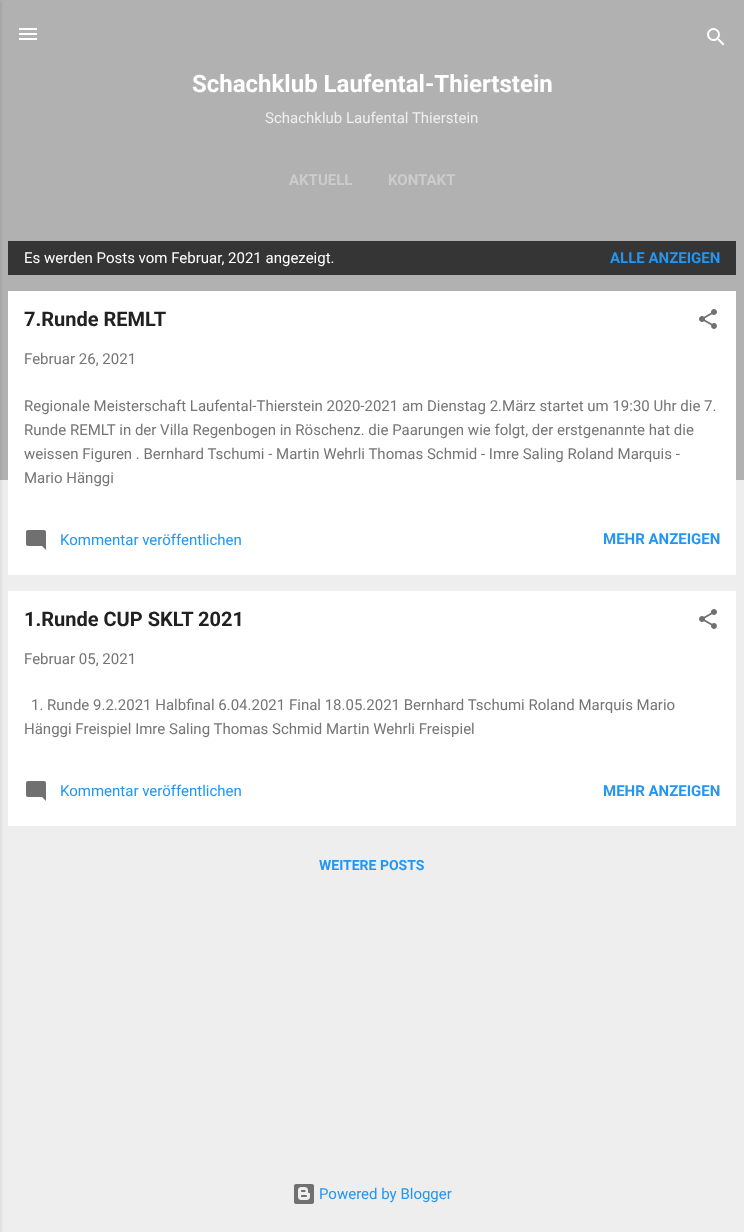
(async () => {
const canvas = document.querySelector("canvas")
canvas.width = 744
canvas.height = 1232
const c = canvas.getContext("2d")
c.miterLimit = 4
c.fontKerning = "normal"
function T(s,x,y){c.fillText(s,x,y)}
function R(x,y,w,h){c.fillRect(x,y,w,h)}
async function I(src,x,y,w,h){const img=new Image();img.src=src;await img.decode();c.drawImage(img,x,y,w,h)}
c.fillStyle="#eee"
R(0,0,744,1232)
c.fillStyle="#b1b1b1"
R(0,0,744,480)
c.fillStyle="#0000001a"
c.filter="blur(1.5px)"
c.beginPath()
c.rect(-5,1,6,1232)
c.fill()
c.filter="none"
await I("1.png",19,28,18,12)
await I("2.png",707,28,18,18)
c.font="bold 24px Roboto"
c.fillStyle="#fff"
T("Schachklub Laufental-Thiertstein",192,92)
c.font="15px Roboto"
c.fillStyle="#efefef"
T("Schachklub Laufental Thierstein",265,123)
c.font="bold 15px Roboto"
c.fillStyle="#ccc"
T("AKTUELL",289,185)
T("KONTAKT",388,185)
c.fillStyle="#353535"
R(8,241,728,34)
c.font="15px Roboto"
c.fillStyle="#fff"
T("Es werden Posts vom Februar, 2021 angezeigt.",24,263)
c.font="bold 15px Roboto"
c.fillStyle="#2196f3"
T("ALLE ANZEIGEN",610,263)
c.fillStyle="#fff"
R(8,291,728,284)
c.font="bold 20px Roboto"
c.fillStyle="#212121"
T("7.Runde REMLT",24,326)
await I("3.png",699,309,18,20)
c.font="15px Roboto"
c.fillStyle="#757575"
T("Februar 26, 2021",24,364)
T("Regionale Meisterschaft Laufental-Thierstein 2020-2021 am Dienstag 2.März startet um 19:30 Uhr die 7.",24,411)
T("Runde REMLT in der Villa Regenbogen in Röschenz. die Paarungen wie folgt, der erstgenannte hat die",24,435)
T("weissen Figuren . Bernhard Tschumi - Martin Wehrli Thomas Schmid - Imre Saling Roland Marquis -",24,459)
T("Mario Hänggi",24,483)
await I("4.png",26,530,20,20)
c.fillStyle="#2196f3"
T("Kommentar veröffentlichen",60,545)
c.font="bold 15px Roboto"
T("MEHR ANZEIGEN",603,544)
c.fillStyle="#fff"
R(8,591,728,235)
c.font="bold 20px Roboto"
c.fillStyle="#212121"
T("1.Runde CUP SKLT 2021",24,626)
await I("3.png",699,609,18,20)
c.font="15px Roboto"
c.fillStyle="#757575"
T("Februar 05, 2021",24,664)
T("1. Runde 9.2.2021 Halbfinal 6.04.2021 Final 18.05.2021 Bernhard Tschumi Roland Marquis Mario",31,710)
T("Hänggi Freispiel Imre Saling Thomas Schmid Martin Wehrli Freispiel",24,734)
await I("4.png",26,781,20,20)
c.fillStyle="#2196f3"
T("Kommentar veröffentlichen",60,796)
c.font="bold 15px Roboto"
T("MEHR ANZEIGEN",603,796)
c.font="bold 14px Roboto"
T("WEITERE POSTS",319,870)
await I("5.png",294,1184,20,20)
c.font="15px Roboto"
T("Powered by Blogger",319,1199)
})()
